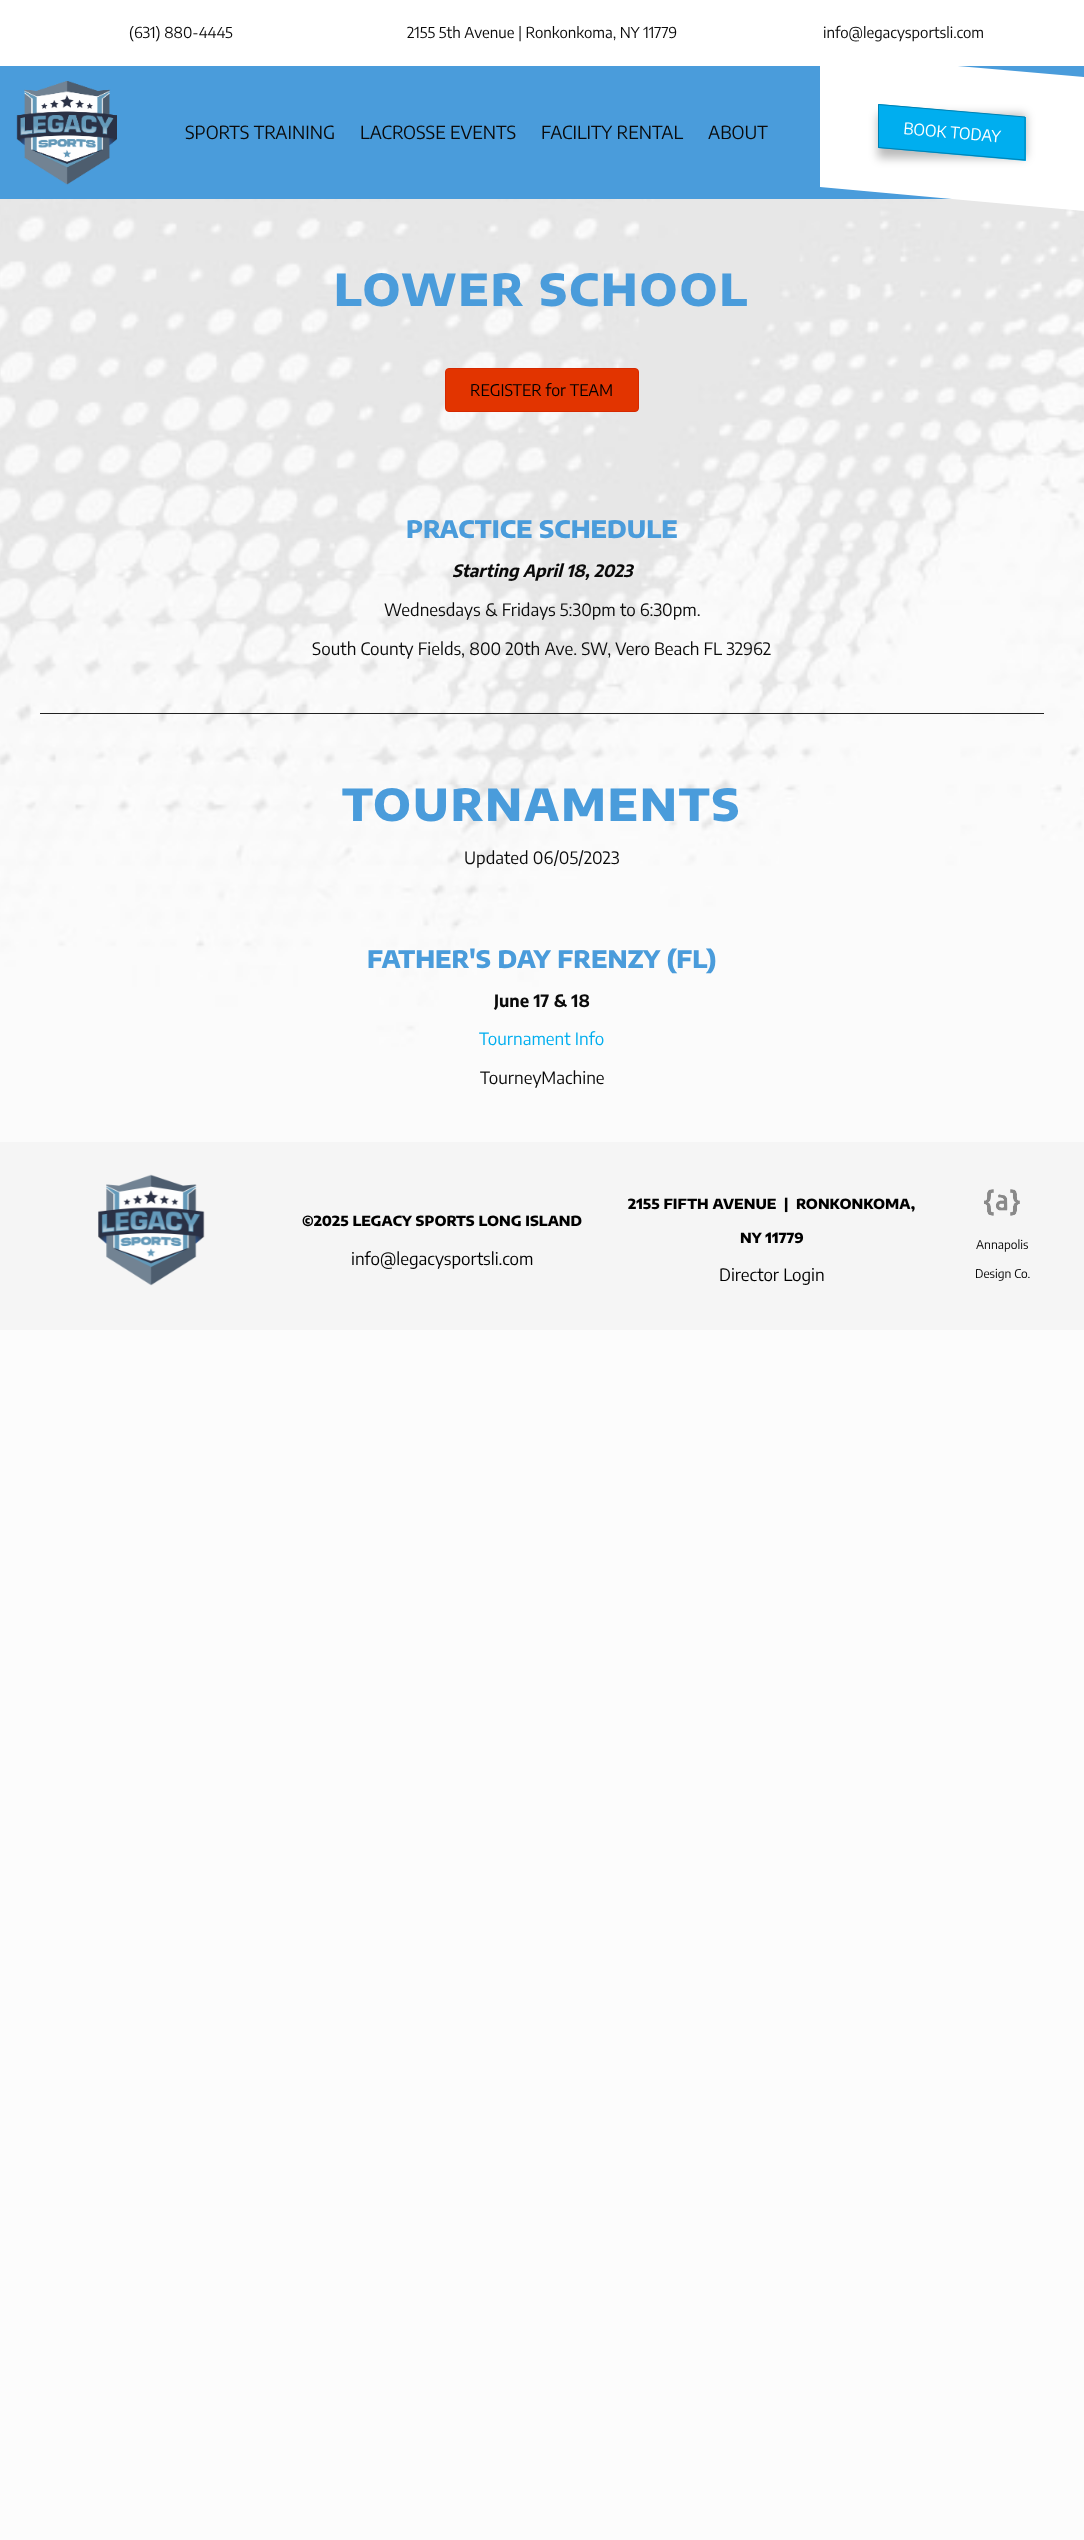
(async () => {
const canvas = document.querySelector("canvas")
canvas.width = 1084
canvas.height = 2540
const c = canvas.getContext("2d")
c.miterLimit = 4
c.fontKerning = "normal"
function T(s,x,y){c.fillText(s,x,y)}
function R(x,y,w,h){c.fillRect(x,y,w,h)}
async function I(src,x,y,w,h){const img=new Image();img.src=src;await img.decode();c.drawImage(img,x,y,w,h)}
let path
c.fillStyle="#fcfcfc"
R(0,0,1084,2540)
c.fillStyle="#fff"
R(0,0,1084,66)
c.font="15px Encode Sans Condensed"
c.fillStyle="#0a0a0a"
T("(631) 880-4445",129,38)
T("2155 5th Avenue | Ronkonkoma, NY 11779",407,38)
T("info@legacysportsli.com",823,38)
c.fillStyle="#4a9cdb"
R(0,66,1084,133)
await I("1.png",16,81,101,104)
c.font="18px Encode Sans Condensed"
c.fillStyle="#0a0a0a"
T("SPORTS TRAINING",185,139)
T("LACROSSE EVENTS",360,139)
T("FACILITY RENTAL",541,139)
T("ABOUT",708,139)
await I("2.png",0,199,1084,943)
c.fillStyle="#fff"
path = new Path2D("M820 54l264 23v134l-264-24z")
c.fill(path)
c.fillStyle="#00000045"
c.filter="blur(5px)"
c.beginPath()
c.rect(878,114,148,44)
c.fill()
c.filter="none"
c.fillStyle="#00aeef"
path = new Path2D("M878 104l148 13v44l-148-13z")
c.fill(path)
path = new Path2D("M878.5 104.5l146.5 12.5v43l-146.5-12.5z")
c.strokeStyle="#0081b2"
c.stroke(path)
c.font="16px Encode Sans Condensed"
c.fillStyle="#fff"
c.save()
c.translate(903,134)
c.rotate(5 * Math.PI / 180)
c.fillText("BOOK TODAY",0,0)
c.restore()
c.letterSpacing="2px"
c.font="800 44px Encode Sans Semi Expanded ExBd"
c.fillStyle="#4a9cdb"
T("LOWER SCHOOL",334,306)
c.fillStyle="#e23400"
c.beginPath()
c.roundRect(445.5,368.5,193,43,3.5)
c.fill()
c.strokeStyle="#d62800"
c.stroke()
c.letterSpacing="0px"
c.font="16px Encode Sans Condensed"
c.fillStyle="#000"
T("REGISTER for TEAM",470,396)
c.font="800 24px Encode Sans Semi Expanded ExBd"
c.fillStyle="#4a9cdb"
T("PRACTICE SCHEDULE",406,538)
c.font="italic bold 17px Encode Sans Condensed"
c.fillStyle="#0a0a0a"
T("Starting April 18, 2023",452,577)
c.font="17px Encode Sans Condensed"
T("Wednesdays & Fridays 5:30pm to 6:30pm.",384,616)
T("South County Fields, 800 20th Ave. SW, Vero Beach FL 32962",312,655)
c.fillStyle="#212121"
R(40,713,1004,1)
c.letterSpacing="2px"
c.font="800 44px Encode Sans Semi Expanded ExBd"
c.fillStyle="#4a9cdb"
T("TOURNAMENTS",342,821)
c.letterSpacing="0px"
c.font="17px Encode Sans Condensed"
c.fillStyle="#0a0a0a"
T("Updated 06/05/2023",464,864)
c.font="800 24px Encode Sans Semi Expanded ExBd"
c.fillStyle="#4a9cdb"
T("FATHER'S DAY FRENZY (FL)",367,968)
c.font="bold 17px Encode Sans Condensed"
c.fillStyle="#0a0a0a"
T("June 17 & 18",494,1007)
c.font="17px Encode Sans Condensed"
c.fillStyle="#00aeef"
T("Tournament Info",479,1045)
c.fillStyle="#0a0a0a"
T("TourneyMachine",480,1084)
c.fillStyle="#f5f5f5"
R(0,1142,1084,188)
await I("3.png",98,1174,107,112)
c.font="800 14px Encode Sans Semi Expanded ExBd"
c.fillStyle="#000"
T("©2025 LEGACY SPORTS LONG ISLAND",302,1226)
c.font="17px Encode Sans Condensed"
T("info@legacysportsli.com",351,1265)
c.font="800 14px Encode Sans Semi Expanded ExBd"
T("2155 FIFTH AVENUE",628,1209)
T("|",784,1209)
T("RONKONKOMA,",796,1209)
T("NY 11779",740,1243)
c.font="17px Encode Sans Condensed"
T("Director Login",719,1281)
await I("4.png",984,1189,36,27)
c.font="12px Encode Sans Condensed"
T("Annapolis",976,1249)
T("Design Co.",975,1278)
})()
